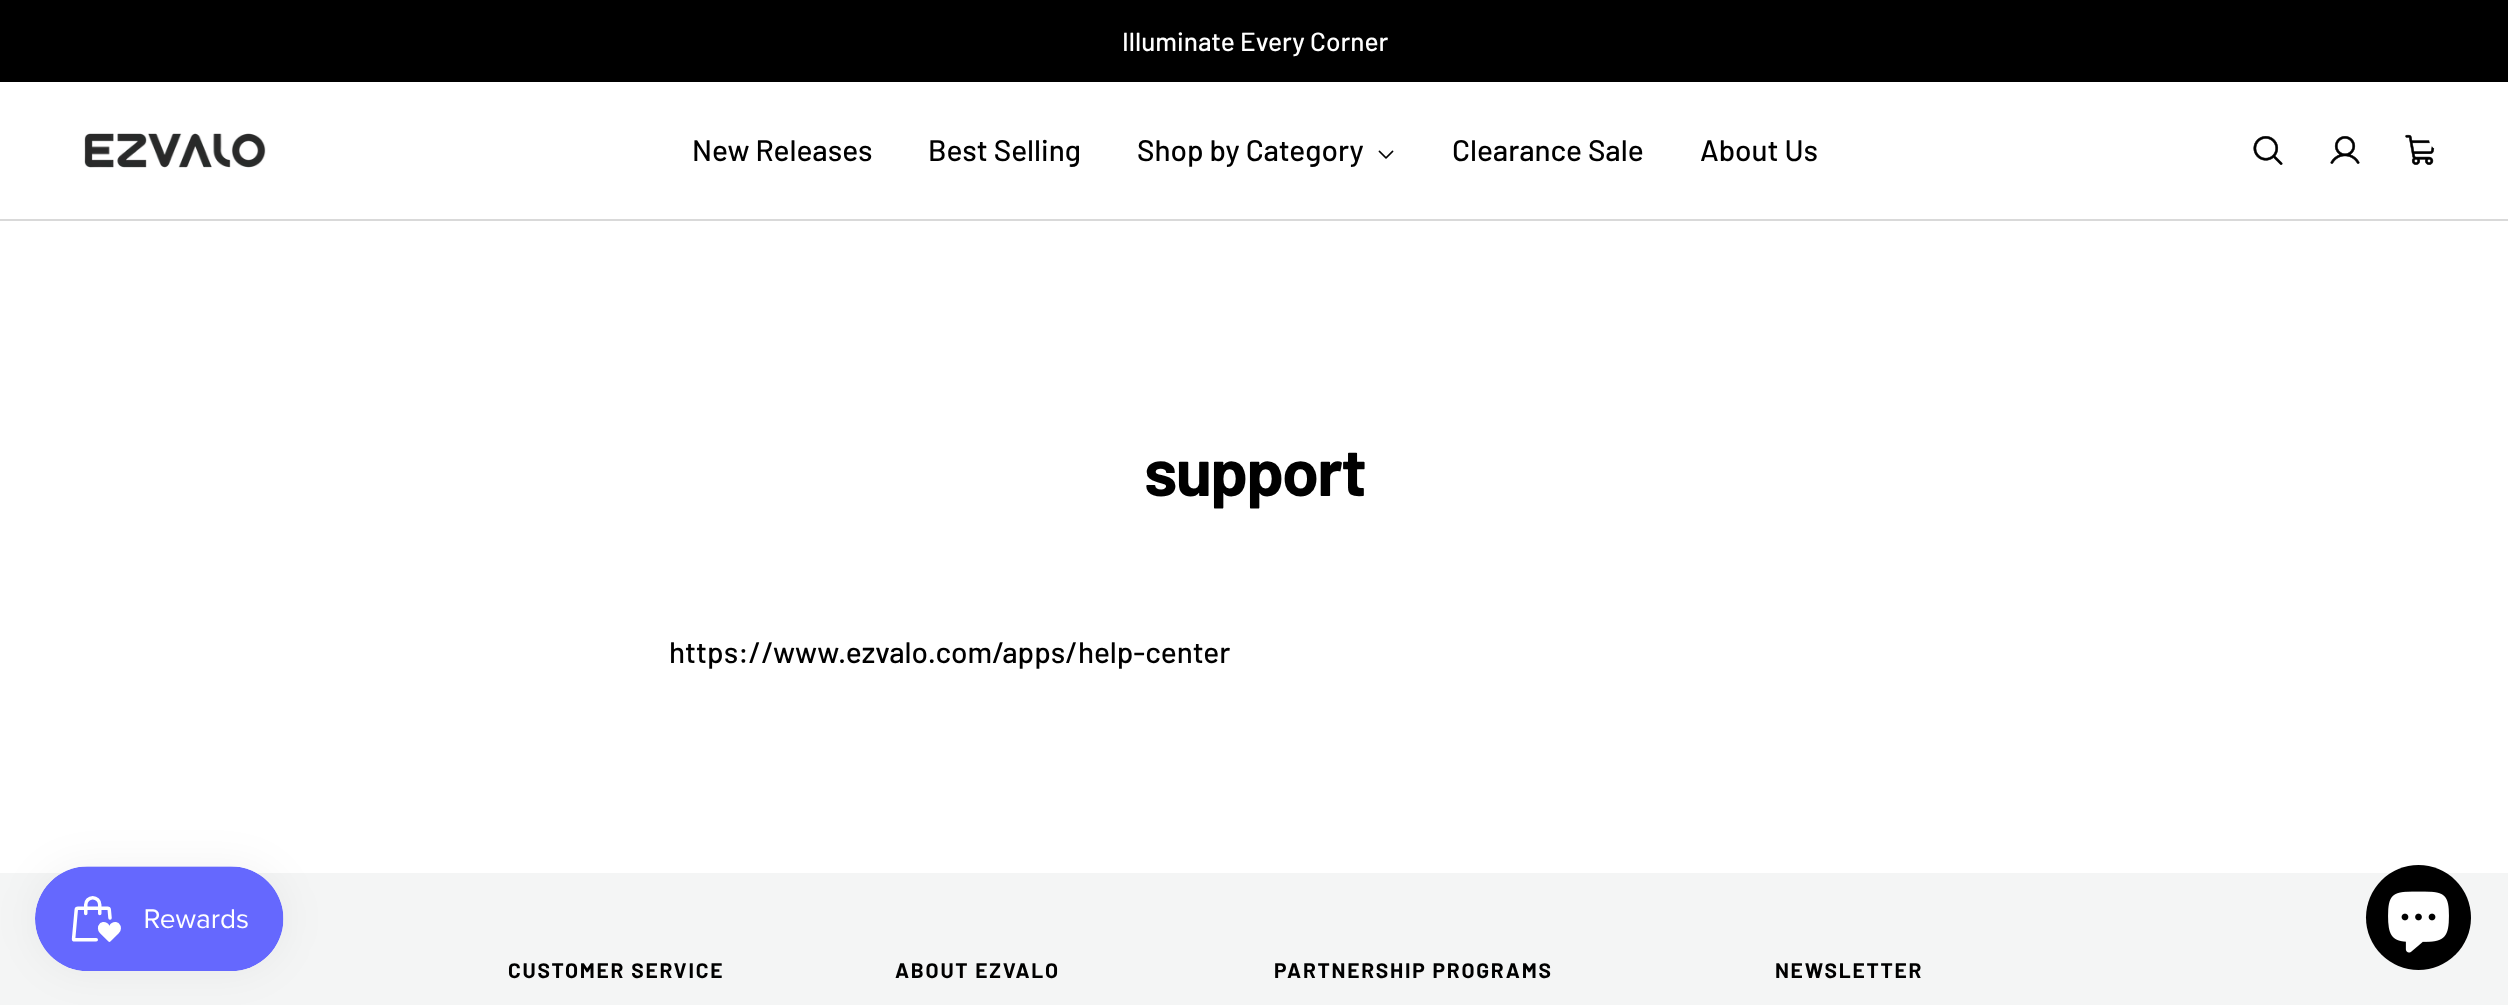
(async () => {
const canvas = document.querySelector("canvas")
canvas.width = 2508
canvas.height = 1005
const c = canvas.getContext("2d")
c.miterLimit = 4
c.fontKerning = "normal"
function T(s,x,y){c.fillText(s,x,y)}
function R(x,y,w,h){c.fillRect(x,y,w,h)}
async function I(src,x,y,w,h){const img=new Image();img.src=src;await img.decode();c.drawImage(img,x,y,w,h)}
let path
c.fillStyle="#fff"
R(0,0,2508,1005)
c.fillStyle="#000"
R(0,0,2508,82)
c.font="500 26.25px Barlow"
c.fillStyle="#fff"
T("Illuminate Every Corner",1122,51)
c.fillStyle="#d9d9d9"
path = new Path2D("M0 219v2h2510v-137v135z")
c.fill(path)
await I("1.png",84,133,182,35)
c.font="500 29.75px Barlow"
c.fillStyle="#000"
T("New Releases",692,161)
T("Best Selling",928,161)
T("Shop by Category",1137,161)
await I("2.png",1378,150,16,9)
T("Clearance Sale",1452,161)
T("About Us",1700,161)
await I("3.png",2253,136,30,29)
await I("4.png",2330,136,30,28)
await I("5.png",2405,134,30,31)
c.fillStyle="#fff"
c.beginPath()
c.arc(2441.5,138.5,12.5,0,7)
c.fill()
c.letterSpacing="-1.75px"
c.font="bold 66.5px Barlow"
c.fillStyle="#000"
T("support",1144,496)
c.letterSpacing="0px"
c.font="500 29.75px Barlow"
T("https://www.ezvalo.com/apps/help-center",669,663)
c.fillStyle="#f4f5f5"
R(0,873,2508,132)
c.fillStyle="#0000000d"
c.filter="blur(22px)"
c.beginPath()
c.roundRect(35,866,249,105,52.5)
c.fill()
c.filter="none"
await I("6.png",35,866,249,105)
c.letterSpacing="1.75px"
c.font="bold 21px Barlow"
c.fillStyle="#000"
T("CUSTOMER SERVICE",508,978)
T("ABOUT EZVALO",895,978)
T("PARTNERSHIP PROGRAMS",1274,978)
T("NEWSLETTER",1775,978)
c.beginPath()
c.arc(2418.5,917.5,52.5,0,7)
c.fill()
await I("7.png",2388,891,61,62)
})()
